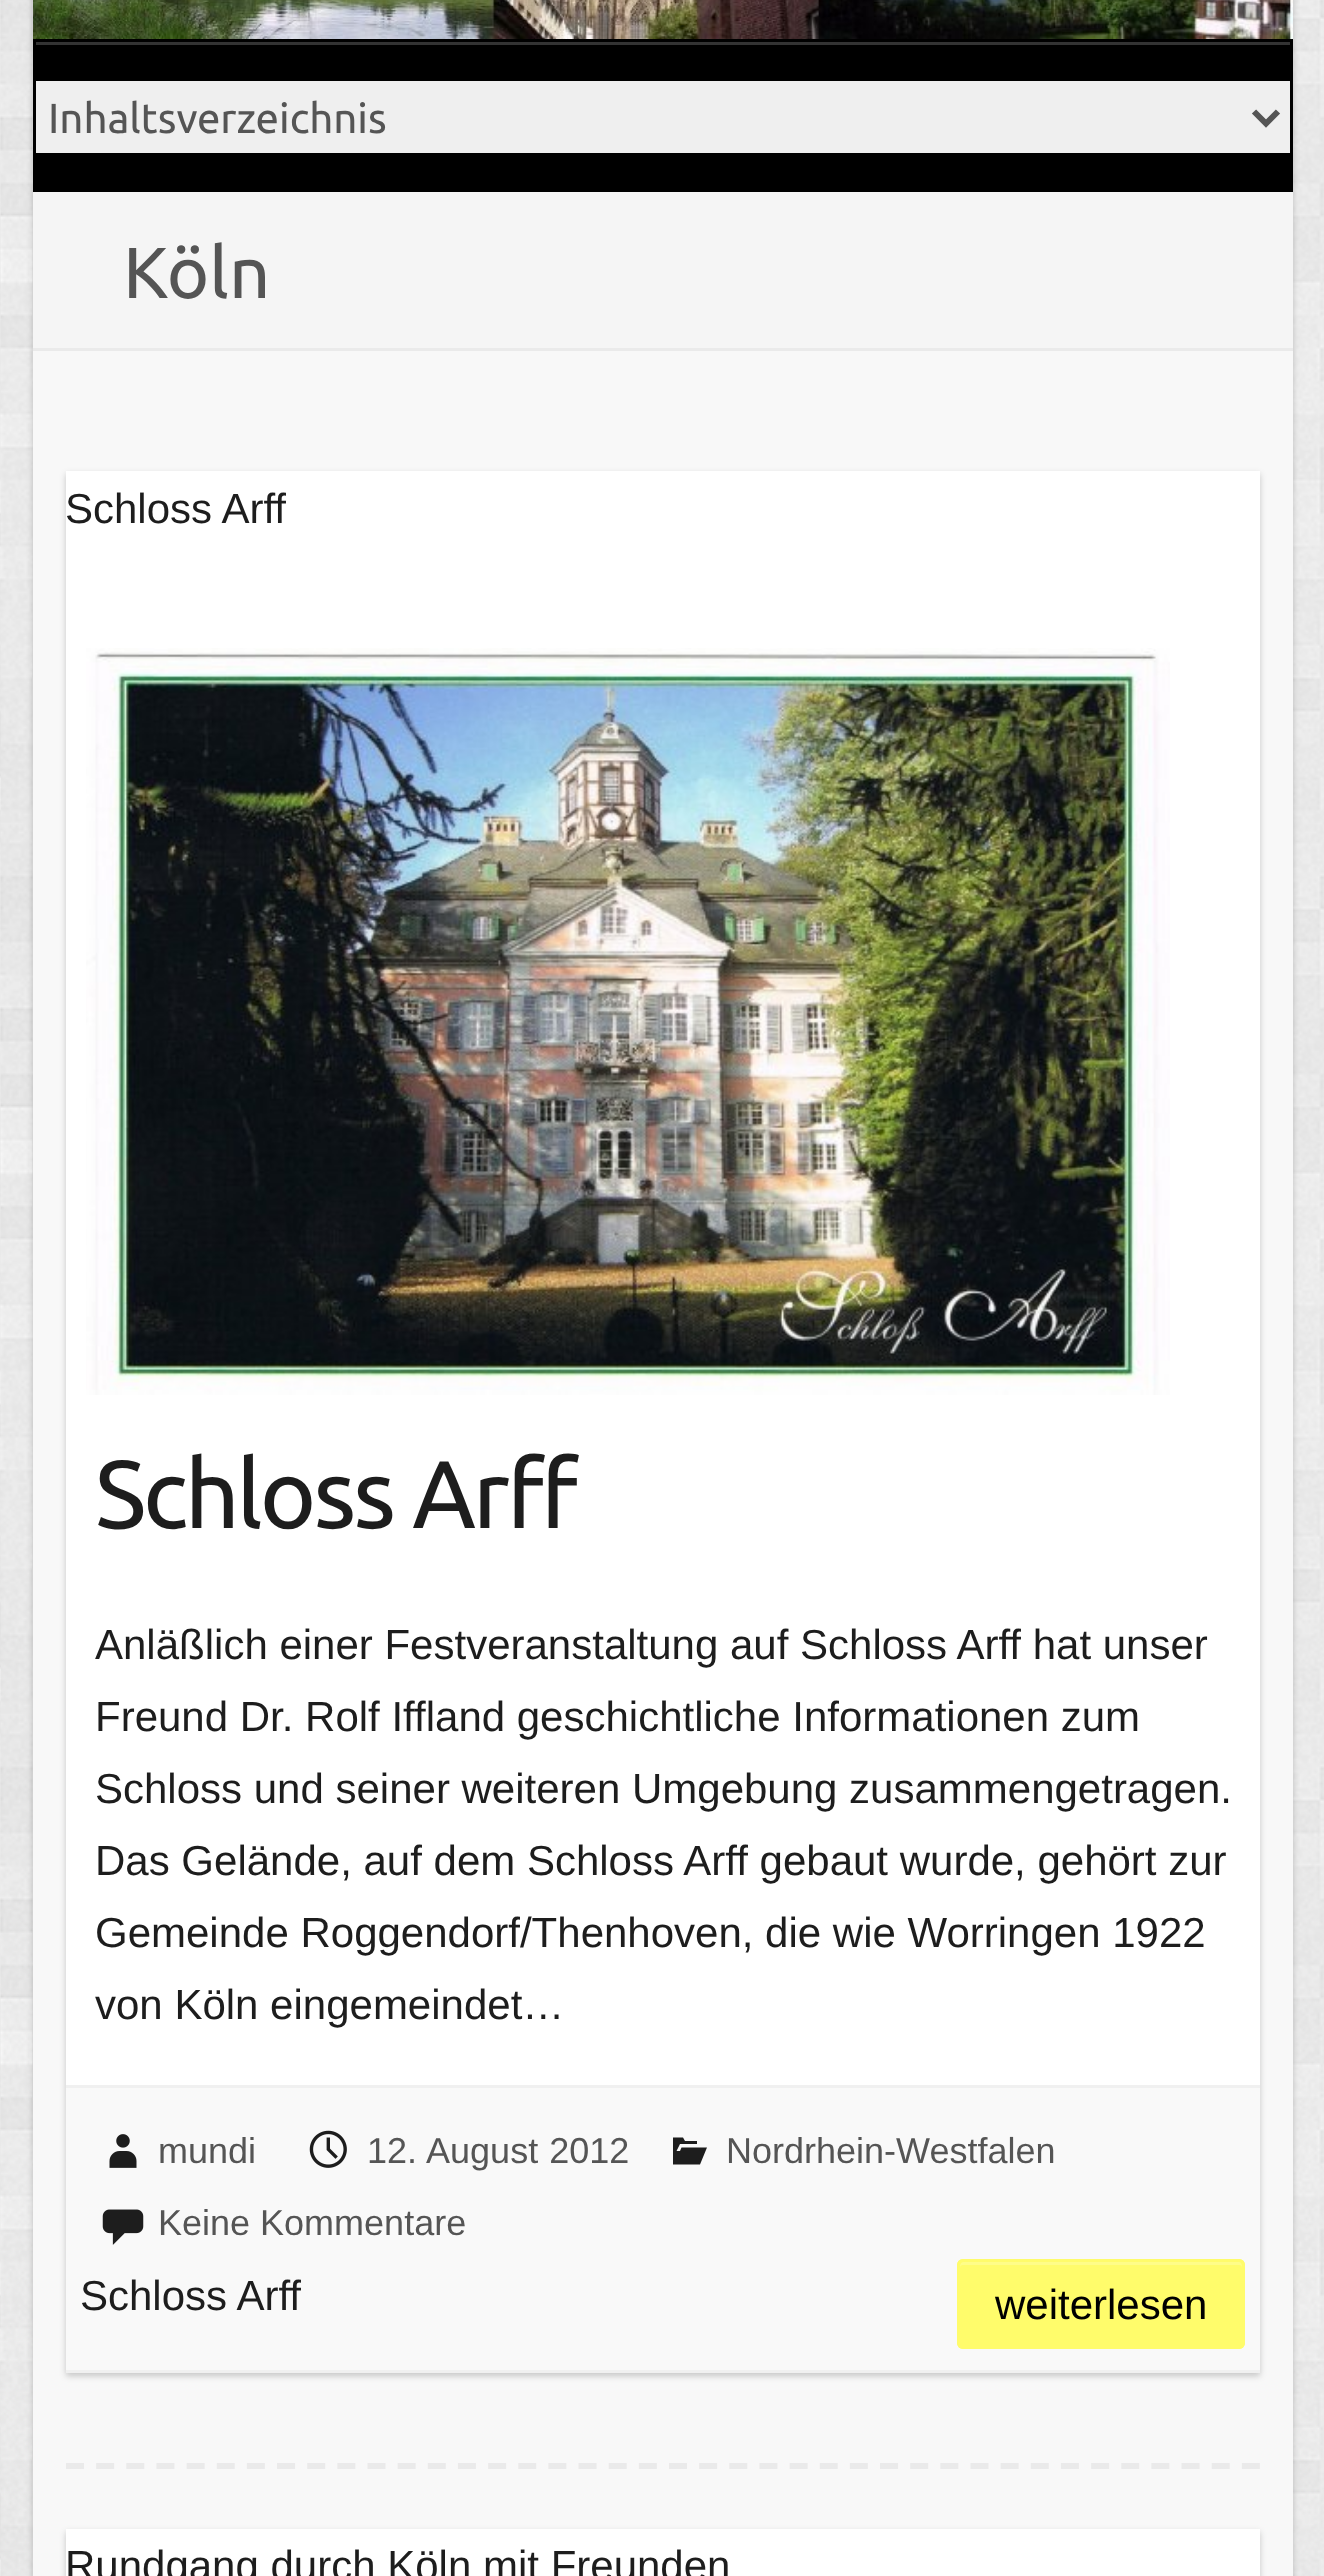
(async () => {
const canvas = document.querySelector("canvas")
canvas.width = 1324
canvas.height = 2576
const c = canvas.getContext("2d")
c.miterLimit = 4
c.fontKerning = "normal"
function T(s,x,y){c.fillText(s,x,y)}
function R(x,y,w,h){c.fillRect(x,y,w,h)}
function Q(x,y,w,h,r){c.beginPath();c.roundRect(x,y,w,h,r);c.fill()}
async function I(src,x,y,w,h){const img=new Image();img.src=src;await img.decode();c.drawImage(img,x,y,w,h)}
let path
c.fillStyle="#fff"
R(0,0,1324,2576)
await I("1.png",0,0,1324,2576)
c.fillStyle="#00000033"
c.filter="blur(3px)"
c.beginPath()
c.roundRect(33,-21,1260,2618,12)
c.fill()
c.filter="none"
c.fillStyle="#f8f8f8"
R(33,351,1260,2225)
await I("2.png",33,0,1260,39)
c.fillStyle="#000"
R(33,39,1260,153)
c.fillStyle="#333"
R(36,42,1254,3)
c.fillStyle="#efefef"
R(36,81,1254,72)
path = new Path2D("M1254 111.5l12 12l12-12")
c.strokeStyle="#555"
c.lineWidth=6
c.stroke(path)
c.font="42px Ubuntu"
c.fillStyle="#555"
T("Inhaltsverzeichnis",48,133)
c.fillStyle="#f5f5f5"
R(33,192,1260,156)
c.fillStyle="#eaeaea"
R(33,348,1260,3)
c.font="72px Ubuntu"
c.fillStyle="#555"
T("Köln",123,298)
c.fillStyle="#00000033"
c.filter="blur(3px)"
c.beginPath()
c.rect(66,474,1194,1902)
c.fill()
c.filter="none"
c.fillStyle="#fff"
R(66,471,1194,1614)
c.font="42px Liberation Sans"
c.fillStyle="#1d1d1d"
T("Schloss Arff",65,523)
await I("3.png",86,648,1084,747)
c.letterSpacing="-3px"
c.font="96px Ubuntu"
T("Schloss Arff",95,1528)
c.letterSpacing="0px"
c.font="42px Liberation Sans"
T("Anläßlich einer Festveranstaltung auf Schloss Arff hat unser",95,1659)
T("Freund Dr. Rolf Iffland geschichtliche Informationen zum",95,1731)
T("Schloss und seiner weiteren Umgebung zusammengetragen.",95,1803)
T("Das Gelände, auf dem Schloss Arff gebaut wurde, gehört zur",95,1875)
T("Gemeinde Roggendorf/Thenhoven, die wie Worringen 1922",95,1947)
T("von Köln eingemeindet…",95,2019)
c.fillStyle="#f9f9f9"
R(66,2088,1194,282)
c.fillStyle="#f0f0f0"
R(66,2085,1194,3)
R(66,2370,1194,3)
await I("4.png",109,2134,28,34)
c.font="36px Liberation Sans"
c.fillStyle="#555"
T("mundi",158,2163)
await I("5.png",309,2130,38,38)
c.wordSpacing="1px"
T("12. August 2012",367,2163)
c.wordSpacing="0px"
T("Nordrhein-Westfalen",726,2163)
c.fillStyle="#1d1d1d"
path = new Path2D("M681.5 2147.5h25.5l-7 17h-27v-27h10l2 3.5h12v3h-17l-3.5 7h3.5z")
c.fill(path)
await I("6.png",102,2209,42,36)
c.fillStyle="#555"
T("Keine Kommentare",158,2235)
c.font="42px Liberation Sans"
c.fillStyle="#1d1d1d"
T("Schloss Arff",80,2310)
c.fillStyle="#fffc6b"
Q(957,2259,288,90,6)
c.fillStyle="#fffd89"
path = new Path2D("M963 2265h276c2 0 3 1 3 3c0-2 0-5-2-6h-277c-3 0-3 4-3 6c0-2 1-3 3-3z")
c.fill(path)
c.beginPath()
c.roundRect(958.5,2260.5,285,87,4.5)
c.strokeStyle="#fffc6b"
c.lineWidth=3
c.stroke()
c.fillStyle="#000"
T("weiterlesen",995,2319)
path = new Path2D("M66 2466h1194")
c.strokeStyle="#eaeaea"
c.lineWidth=6
c.setLineDash([18,12.15])
c.stroke(path)
c.fillStyle="#00000033"
c.filter="blur(3px)"
c.beginPath()
c.rect(66,2532,1194,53)
c.fill()
c.filter="none"
c.fillStyle="#fff"
R(66,2529,1194,47)
c.fillStyle="#1d1d1d"
T("Rundgang durch Köln mit Freunden",65,2580)
})()
